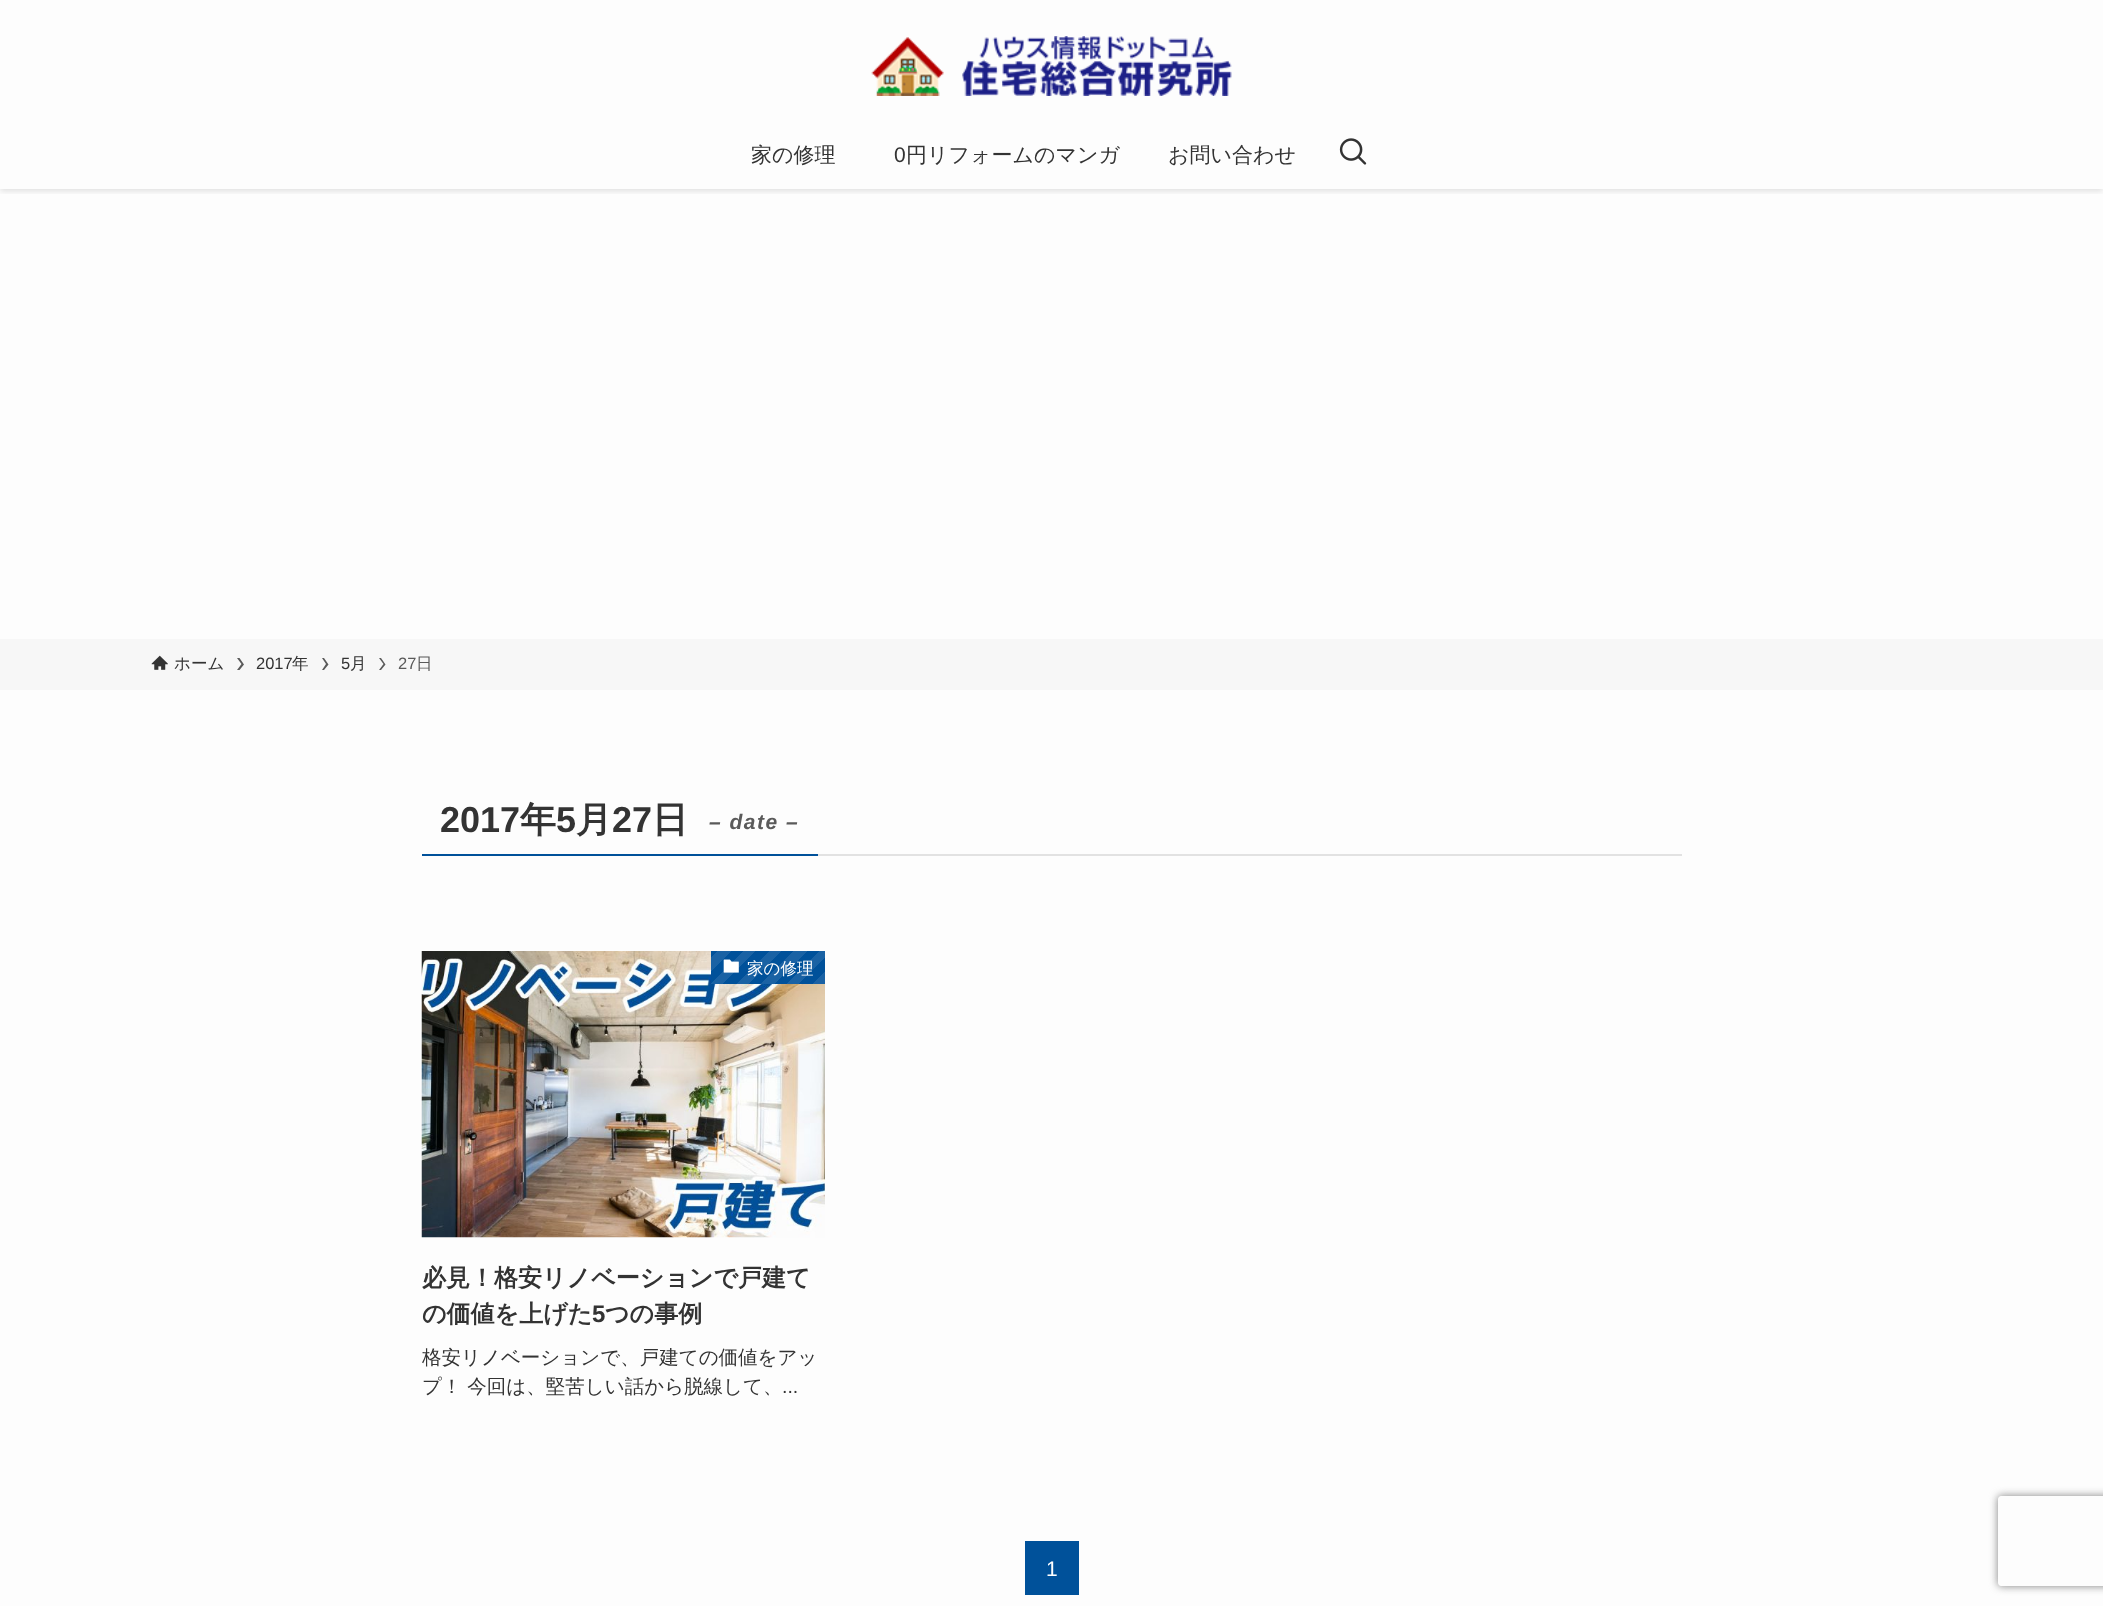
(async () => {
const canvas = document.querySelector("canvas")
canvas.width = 2103
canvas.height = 1606
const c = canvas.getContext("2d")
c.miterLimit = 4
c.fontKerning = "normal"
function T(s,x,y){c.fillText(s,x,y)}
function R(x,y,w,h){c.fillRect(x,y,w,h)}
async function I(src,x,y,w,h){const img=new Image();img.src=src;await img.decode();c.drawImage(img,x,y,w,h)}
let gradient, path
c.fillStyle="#fdfdfd"
R(0,0,2103,1606)
c.save()
c.beginPath()
c.rect(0,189,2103,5)
c.clip()
c.fillStyle="#0000001f"
c.filter="blur(3px)"
c.beginPath()
c.rect(0,2,2103,189)
c.fill()
c.filter="none"
c.restore()
await I("1.png",871,36,361,60)
c.font="500 21px WenQuanYi Zen Hei"
c.fillStyle="#333"
T("家の修理",751,162)
c.font="21px Liberation Sans"
T("0",894,162)
c.font="500 21px WenQuanYi Zen Hei"
T("円リフォームのマンガ",906,162)
T("お問い合わせ",1168,162)
await I("2.png",1339,138,28,27)
c.fillStyle="#f7f7f7"
R(0,639,2103,51)
await I("3.png",151,655,17,15)
c.font="500 16.5px WenQuanYi Zen Hei"
c.fillStyle="#333"
T("ホーム",174,669)
c.fillStyle="#5a5a5a"
path = new Path2D("M239.5 658h-2.5l4.5 6l-4.5 6h2.5l4.5-5.5z")
c.fill(path)
c.font="16.5px Liberation Sans"
c.fillStyle="#333"
T("2017",256,669)
c.font="500 16.5px WenQuanYi Zen Hei"
T("年",292,669)
c.fillStyle="#5a5a5a"
path = new Path2D("M324 658h-2l4 6l-4 6h2l4.5-5.5z")
c.fill(path)
c.font="16.5px Liberation Sans"
c.fillStyle="#333"
T("5",341,669)
c.font="500 16.5px WenQuanYi Zen Hei"
T("月",350,669)
c.fillStyle="#5a5a5a"
path = new Path2D("M381 658h-2l4.5 6l-4.5 6h2l4.5-5.5z")
c.fill(path)
c.font="16.5px Liberation Sans"
T("27",398,669)
c.font="500 16.5px WenQuanYi Zen Hei"
T("日",416,669)
c.fillStyle="#e2e2e2"
R(818,854,864,2)
c.fillStyle="#00519a"
R(422,854,396,2)
c.font="bold 36px Liberation Sans"
c.fillStyle="#333"
T("2017",440,832)
c.font="bold 36px WenQuanYi Zen Hei"
T("年",520,832)
c.font="bold 36px Liberation Sans"
T("5",556,832)
c.font="bold 36px WenQuanYi Zen Hei"
T("月",576,832)
c.font="bold 36px Liberation Sans"
T("27",612,832)
c.font="bold 36px WenQuanYi Zen Hei"
T("日",652,832)
c.letterSpacing="1.5px"
c.font="italic bold 21px Liberation Sans"
c.fillStyle="#5a5a5a"
T("– date –",709,829)
await I("4.png",421,951,404,287)
gradient = c.createLinearGradient(805,1004,728,928)
gradient.addColorStop(0,"#1a62a4")
gradient.addColorStop(.08,"#1a62a4")
gradient.addColorStop(.08,"#00519a")
gradient.addColorStop(.17,"#00519a")
gradient.addColorStop(.17,"#1a62a4")
gradient.addColorStop(.25,"#1a62a4")
gradient.addColorStop(.25,"#00519a")
gradient.addColorStop(.33,"#00519a")
gradient.addColorStop(.33,"#1a62a4")
gradient.addColorStop(.42,"#1a62a4")
gradient.addColorStop(.42,"#00519a")
gradient.addColorStop(.5,"#00519a")
gradient.addColorStop(.5,"#1a62a4")
gradient.addColorStop(.58,"#1a62a4")
gradient.addColorStop(.58,"#00519a")
gradient.addColorStop(.67,"#00519a")
gradient.addColorStop(.67,"#1a62a4")
gradient.addColorStop(.75,"#1a62a4")
gradient.addColorStop(.75,"#00519a")
gradient.addColorStop(.83,"#00519a")
gradient.addColorStop(.83,"#1a62a4")
gradient.addColorStop(.92,"#1a62a4")
gradient.addColorStop(.92,"#00519a")
gradient.addColorStop(1,"#00519a")
c.fillStyle = gradient
R(711,951,114,33)
await I("5.png",723,959,16,14)
c.letterSpacing="0px"
c.font="500 16.5px WenQuanYi Zen Hei"
c.fillStyle="#fff"
T("家の修理",747,974)
c.font="bold 24px WenQuanYi Zen Hei"
c.fillStyle="#333"
T("必見！格安リノベーションで戸建て",422,1286)
T("の価値を上げた",422,1322)
c.font="bold 24px Liberation Sans"
T("5",592,1322)
c.font="bold 24px WenQuanYi Zen Hei"
T("つの事例",605,1322)
c.font="500 19.5px WenQuanYi Zen Hei"
T("格安リノベーションで、戸建ての価値をアッ",422,1364)
T("プ！ 今回は、堅苦しい話から脱線して、",422,1393)
c.font="19.5px Liberation Sans"
T("...",782,1393)
c.fillStyle="#00519a"
R(1025,1541,54,54)
c.font="21px Liberation Sans"
c.fillStyle="#fff"
T("1",1046,1576)
c.save()
path = new Path2D("M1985 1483h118v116h-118zm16 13h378c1.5 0 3 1.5 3 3v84c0 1.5-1.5 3-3 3h-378c-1.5 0-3-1.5-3-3v-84c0-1.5 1.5-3 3-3z")
c.clip(path,"evenodd")
c.fillStyle="#808080"
c.filter="blur(4px)"
c.beginPath()
c.roundRect(1998,1496,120,90,3)
c.fill()
c.filter="none"
c.restore()
})()
